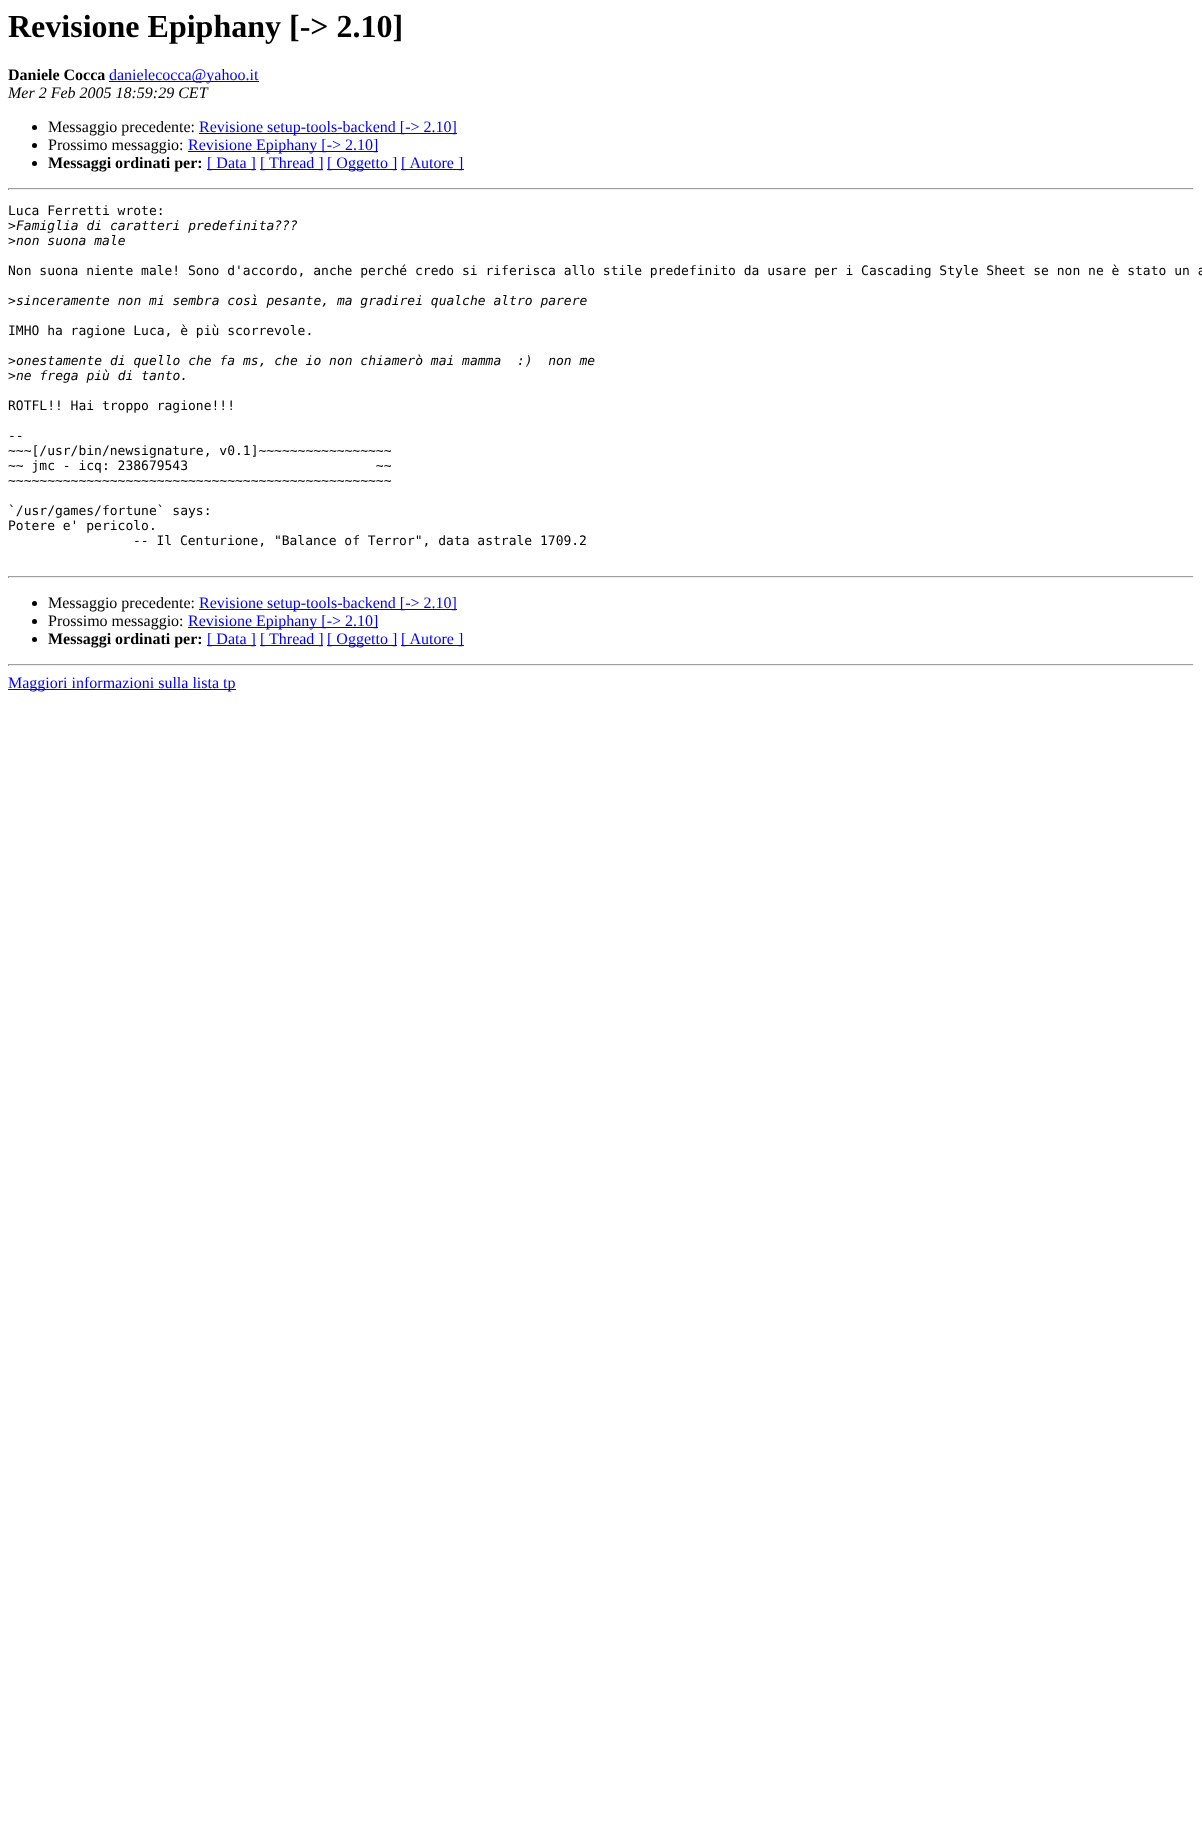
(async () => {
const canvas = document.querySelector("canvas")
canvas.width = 1202
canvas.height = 1824
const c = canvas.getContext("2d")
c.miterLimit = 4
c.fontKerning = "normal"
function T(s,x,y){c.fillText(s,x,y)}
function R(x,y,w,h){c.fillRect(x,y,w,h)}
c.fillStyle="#fff"
R(0,0,1202,1824)
c.font="bold 32px Liberation Serif"
c.fillStyle="#000"
T("Revisione Epiphany [-> 2.10]",8,37)
c.font="bold 16px Liberation Serif"
T("Daniele Cocca",8,80)
c.fillStyle="#00e"
R(109,81,150,1)
c.font="16px Liberation Serif"
T("danielecocca@yahoo.it",109,80)
c.font="italic 16px Liberation Serif"
c.fillStyle="#000"
T("Mer 2 Feb 2005 18:59:29 CET",8,98)
c.beginPath()
c.arc(34.5,127.5,2.5,0,7)
c.fill()
c.font="16px Liberation Serif"
T("Messaggio precedente:",48,132)
c.fillStyle="#00e"
R(199,133,258,1)
T("Revisione setup-tools-backend [-> 2.10]",199,132)
c.fillStyle="#000"
c.beginPath()
c.arc(34.5,145.5,2.5,0,7)
c.fill()
T("Prossimo messaggio:",48,150)
c.fillStyle="#00e"
R(188,151,190,1)
T("Revisione Epiphany [-> 2.10]",188,150)
c.fillStyle="#000"
c.beginPath()
c.arc(34.5,163.5,2.5,0,7)
c.fill()
c.font="bold 16px Liberation Serif"
T("Messaggi ordinati per:",48,168)
c.fillStyle="#00e"
R(207,169,49,1)
c.font="16px Liberation Serif"
T("[ Data ]",207,168)
R(260,169,63,1)
T("[ Thread ]",260,168)
R(327,169,70,1)
T("[ Oggetto ]",327,168)
R(401,169,63,1)
T("[ Autore ]",401,168)
c.fillStyle="#9f9f9f"
R(8,188,1186,1)
c.fillStyle="#eee"
R(1193,188,1,2)
R(8,189,1186,1)
c.fillStyle="#9f9f9f"
R(8,188,1,2)
c.font="13px DejaVu Sans Mono"
c.fillStyle="#000"
T("Luca Ferretti wrote:",8,215)
T(">",8,230)
c.font="italic 13px DejaVu Sans Mono"
T("Famiglia di caratteri predefinita???",16,230)
c.font="13px DejaVu Sans Mono"
T(">",8,245)
c.font="italic 13px DejaVu Sans Mono"
T("non suona male",16,245)
c.font="13px DejaVu Sans Mono"
T("Non suona niente male! Sono d'accordo, anche perché credo si riferisca allo stile predefinito da usare per i Cascading Style Sheet se non ne è stato un a",8,275)
T(">",8,305)
c.font="italic 13px DejaVu Sans Mono"
T("sinceramente non mi sembra così pesante, ma gradirei qualche altro parere",16,305)
c.font="13px DejaVu Sans Mono"
T("IMHO ha ragione Luca, è più scorrevole.",8,335)
T(">",8,365)
c.font="italic 13px DejaVu Sans Mono"
T("onestamente di quello che fa ms, che io non chiamerò mai mamma  :)  non me",16,365)
c.font="13px DejaVu Sans Mono"
T(">",8,380)
c.font="italic 13px DejaVu Sans Mono"
T("ne frega più di tanto.",16,380)
c.font="13px DejaVu Sans Mono"
T("ROTFL!! Hai troppo ragione!!!",8,410)
T("--",8,440)
T("~~~[/usr/bin/newsignature, v0.1]~~~~~~~~~~~~~~~~~",8,455)
T("~~ jmc - icq: 238679543                        ~~",8,470)
T("~~~~~~~~~~~~~~~~~~~~~~~~~~~~~~~~~~~~~~~~~~~~~~~~~",8,485)
T("`/usr/games/fortune` says:",8,515)
T("Potere e' pericolo.",8,530)
T("-- Il Centurione, \"Balance of Terror\", data astrale 1709.2",133,545)
c.fillStyle="#9f9f9f"
R(8,576,1186,1)
c.fillStyle="#eee"
R(1193,576,1,2)
R(8,577,1186,1)
c.fillStyle="#9f9f9f"
R(8,576,1,2)
c.fillStyle="#000"
c.beginPath()
c.arc(34.5,603.5,2.5,0,7)
c.fill()
c.font="16px Liberation Serif"
T("Messaggio precedente:",48,608)
c.fillStyle="#00e"
R(199,609,258,1)
T("Revisione setup-tools-backend [-> 2.10]",199,608)
c.fillStyle="#000"
c.beginPath()
c.arc(34.5,621.5,2.5,0,7)
c.fill()
T("Prossimo messaggio:",48,626)
c.fillStyle="#00e"
R(188,627,190,1)
T("Revisione Epiphany [-> 2.10]",188,626)
c.fillStyle="#000"
c.beginPath()
c.arc(34.5,639.5,2.5,0,7)
c.fill()
c.font="bold 16px Liberation Serif"
T("Messaggi ordinati per:",48,644)
c.fillStyle="#00e"
R(207,645,49,1)
c.font="16px Liberation Serif"
T("[ Data ]",207,644)
R(260,645,63,1)
T("[ Thread ]",260,644)
R(327,645,70,1)
T("[ Oggetto ]",327,644)
R(401,645,63,1)
T("[ Autore ]",401,644)
c.fillStyle="#9f9f9f"
R(8,664,1186,1)
c.fillStyle="#eee"
R(1193,664,1,2)
R(8,665,1186,1)
c.fillStyle="#9f9f9f"
R(8,664,1,2)
c.fillStyle="#00e"
R(8,689,228,1)
T("Maggiori informazioni sulla lista tp",8,688)
})()
